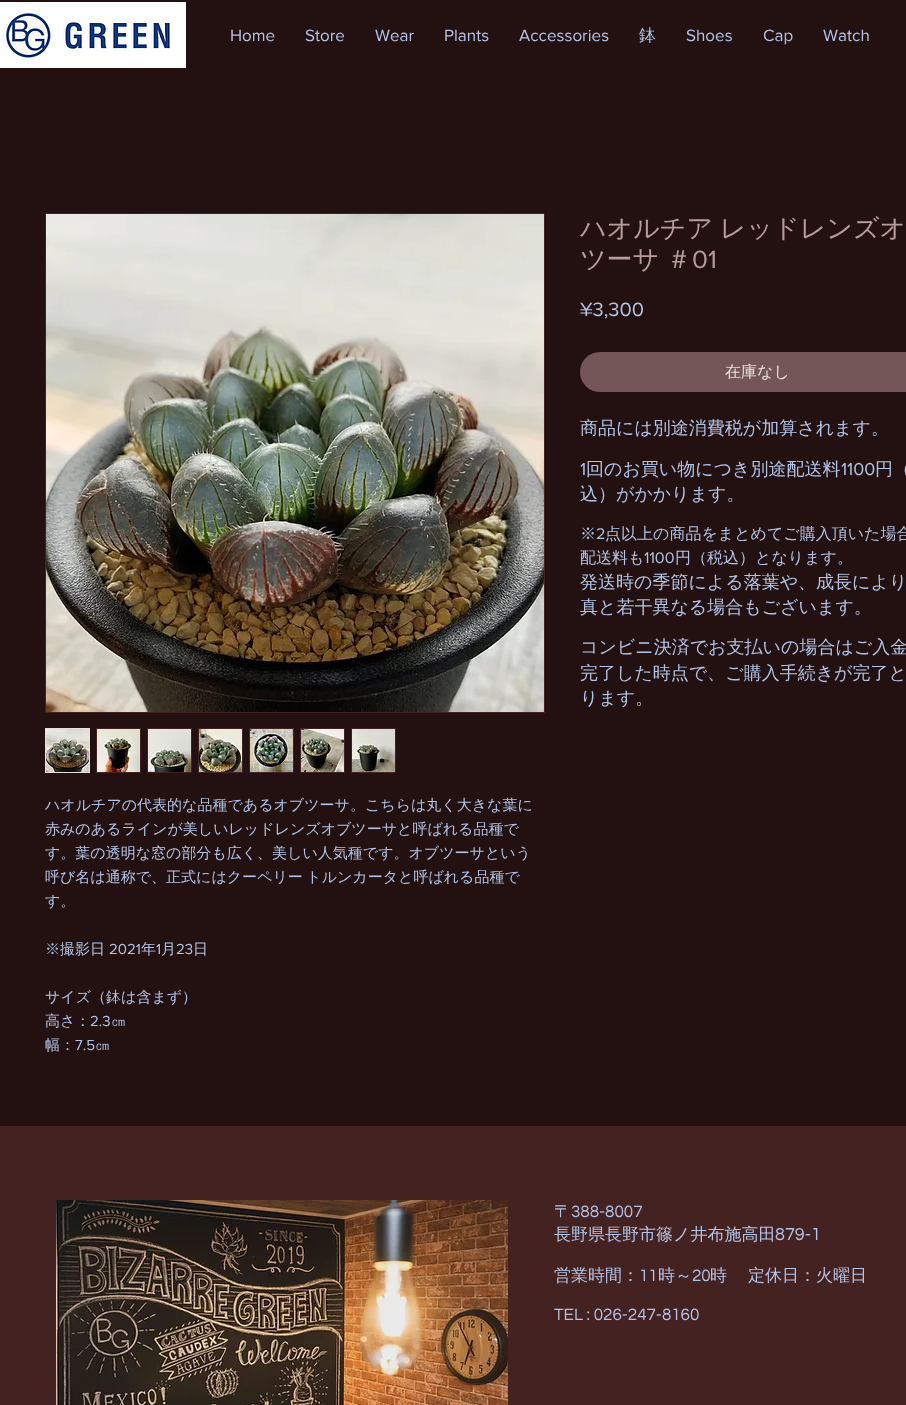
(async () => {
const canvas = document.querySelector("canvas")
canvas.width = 906
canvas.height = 1405
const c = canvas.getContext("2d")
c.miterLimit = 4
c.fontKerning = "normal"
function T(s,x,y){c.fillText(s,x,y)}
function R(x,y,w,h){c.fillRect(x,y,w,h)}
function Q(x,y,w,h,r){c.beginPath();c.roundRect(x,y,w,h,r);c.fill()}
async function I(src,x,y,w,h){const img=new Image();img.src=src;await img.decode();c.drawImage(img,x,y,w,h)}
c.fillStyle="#231111"
R(0,0,906,1405)
await I("1.png",0,2,186,66)
c.font="17px 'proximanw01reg'"
c.fillStyle="#b2c3e6"
T("Home",230,41)
T("Store",305,41)
T("Wear",375,41)
T("Plants",444,41)
T("Accessories",519,41)
c.font="500 17px WenQuanYi Zen Hei"
T("鉢",639,41)
c.font="17px 'proximanw01reg'"
T("Shoes",686,41)
T("Cap",763,41)
T("Watch",823,41)
c.wordSpacing="-1px"
c.font="500 26px WenQuanYi Zen Hei"
c.fillStyle="#b89c9c"
T("ハオルチア レッドレンズオ",580,237)
T("ツーサ ＃",580,268)
c.wordSpacing="0px"
c.font="26px 'proximanw01reg'"
T("01",692,268)
c.font="20px 'proximanw01reg'"
c.fillStyle="#b2c3e6"
T("¥3,300",580,316)
c.fillStyle="#745656"
Q(580,352,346,40,20)
c.font="500 16px WenQuanYi Zen Hei"
c.fillStyle="#e8dfdf"
T("在庫なし",725,377)
c.font="500 18px WenQuanYi Zen Hei"
c.fillStyle="#b2c3e6"
T("商品には別途消費税が加算されます。",580,434)
c.font="18px 'proximanw01reg'"
T("1",580,475)
c.font="500 18px WenQuanYi Zen Hei"
T("回のお買い物につき別途配送料",586,475)
c.font="18px 'proximanw01reg'"
T("1100",841,475)
c.font="500 18px WenQuanYi Zen Hei"
T("円（",875,475)
T("込）がかかります。",580,500)
c.font="500 16px WenQuanYi Zen Hei"
T("※",580,539)
c.font="16px 'proximanw01reg'"
T("2",596,539)
c.font="500 16px WenQuanYi Zen Hei"
T("点以上の商品をまとめてご購入頂いた場合",605,539)
T("配送料も",580,563)
c.font="16px 'proximanw01reg'"
T("1100",644,563)
c.font="500 16px WenQuanYi Zen Hei"
T("円（税込）となります。",675,563)
c.font="500 18px WenQuanYi Zen Hei"
T("発送時の季節による落葉や、成長により",580,588)
T("真と若干異なる場合もございます。",580,613)
T("コンビニ決済でお支払いの場合はご入金",580,653)
T("完了した時点で、ご購入手続きが完了と",580,679)
T("ります。",580,704)
c.strokeStyle="#452222"
c.strokeRect(45.5,213.5,499,499)
await I("2.png",46,214,498,498)
c.strokeStyle="#e8dfdf"
c.strokeRect(45.5,728.5,44,44)
await I("3.png",46,729,43,43)
c.fillStyle="#452222"
R(96,728,45,45)
await I("4.png",97,729,43,43)
R(147,728,45,45)
await I("5.png",148,729,43,43)
R(198,728,45,45)
await I("6.png",199,729,43,43)
R(249,728,45,45)
await I("7.png",250,729,43,43)
R(300,728,45,45)
await I("8.png",301,729,43,43)
R(351,728,45,45)
await I("9.png",352,729,43,43)
c.font="500 15px WenQuanYi Zen Hei"
c.fillStyle="#b2c3e6"
T("ハオルチアの代表的な品種であるオブツーサ。こちらは丸く大きな葉に",45,810)
T("赤みのあるラインが美しいレッドレンズオブツーサと呼ばれる品種で",45,834)
T("す。葉の透明な窓の部分も広く、美しい人気種です。オブツーサという",45,858)
c.wordSpacing="-1px"
T("呼び名は通称で、正式にはクーペリー トルンカータと呼ばれる品種で",45,882)
c.wordSpacing="0px"
T("す。",45,906)
T("※撮影日",45,954)
c.font="15px 'proximanw01reg'"
T("2021",109,954)
c.font="500 15px WenQuanYi Zen Hei"
T("年",141,954)
c.font="15px 'proximanw01reg'"
T("1",156,954)
c.font="500 15px WenQuanYi Zen Hei"
T("月",161,954)
c.font="15px 'proximanw01reg'"
T("23",176,954)
c.font="500 15px WenQuanYi Zen Hei"
T("日",193,954)
T("サイズ（鉢は含まず）",45,1002)
T("高さ：",45,1026)
c.font="15px 'proximanw01reg'"
T("2.3",90,1026)
c.font="500 15px WenQuanYi Zen Hei"
T("㎝",111,1026)
T("幅：",45,1050)
c.font="15px 'proximanw01reg'"
T("7.5",75,1050)
c.font="500 15px WenQuanYi Zen Hei"
T("㎝",95,1050)
c.fillStyle="#452222"
R(0,1126,906,279)
await I("10.png",56,1200,452,205)
c.font="500 17px WenQuanYi Zen Hei"
c.fillStyle="#b2c3e6"
T("〒",554,1217)
c.font="17px Questrial"
T("388-8007",571,1217)
c.font="500 17px WenQuanYi Zen Hei"
T("長野県長野市篠ノ井布施高田",554,1240)
c.font="18px Questrial"
T("879-1",775,1240)
c.font="500 17px WenQuanYi Zen Hei"
T("営業時間：",554,1281)
c.font="17px Questrial"
T("11",639,1281)
c.font="500 17px WenQuanYi Zen Hei"
T("時～",658,1281)
c.font="17px Questrial"
T("20",692,1281)
c.wordSpacing="-1px"
c.font="500 17px WenQuanYi Zen Hei"
T("時　 定休日：火曜日",710,1281)
c.wordSpacing="0px"
c.font="17px Questrial"
T("TEL : 026-247-8160",554,1320)
})()
